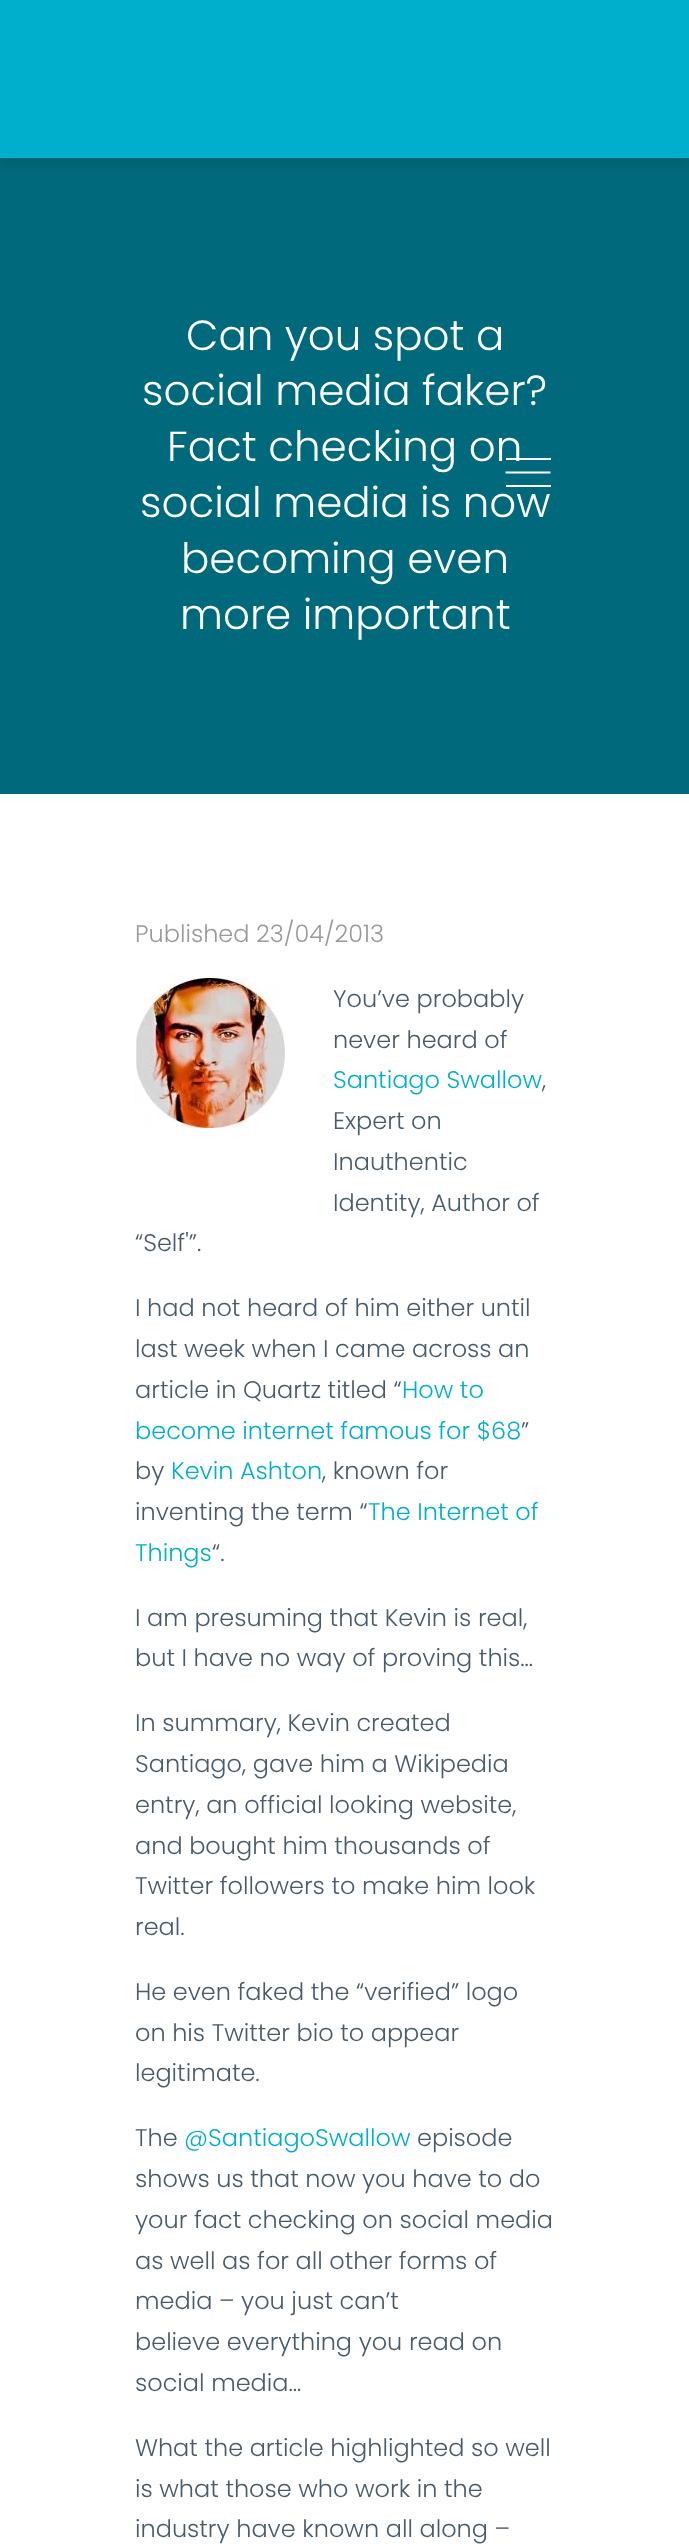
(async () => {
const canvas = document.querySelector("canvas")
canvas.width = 689
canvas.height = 2544
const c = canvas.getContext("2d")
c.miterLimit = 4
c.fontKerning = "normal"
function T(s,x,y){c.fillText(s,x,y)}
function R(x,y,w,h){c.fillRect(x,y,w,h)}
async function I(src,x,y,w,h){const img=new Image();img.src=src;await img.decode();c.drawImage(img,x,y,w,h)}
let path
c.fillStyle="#006a7c"
R(0,0,689,2544)
c.fillStyle="#0000001a"
c.filter="blur(7.5px)"
c.beginPath()
c.rect(0,8,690,157)
c.fill()
c.filter="none"
c.fillStyle="#00afcc"
R(0,0,689,158)
c.fillStyle="#fff"
R(506,458,45,2)
path = new Path2D("M505.5 472.5h45")
c.strokeStyle="#fff"
c.lineWidth=2.2
c.stroke(path)
R(506,485,45,2)
c.font="300 42px Poppins"
T("Can you spot a",186,350)
T("social media faker?",142,405)
T("Fact checking on",167,461)
T("social media is now",140,517)
T("becoming even",181,573)
T("more important",180,629)
R(0,794,689,1750)
c.font="300 24px Poppins"
c.fillStyle="#999"
T("Published 23/04/2013",135,942)
await I("1.png",135,978,150,150)
c.fillStyle="#495a6a"
T("You’ve probably",333,1007)
T("never heard of",333,1048)
T(",",542,1088)
c.fillStyle="#00afcc"
T("Santiago Swallow",333,1088)
c.fillStyle="#495a6a"
T("Expert on",333,1129)
T("Inauthentic",333,1170)
T("Identity, Author of",333,1211)
T("“Self'”.",135,1251)
T("I had not heard of him either until",135,1316)
T("last week when I came across an",135,1357)
T("article in Quartz titled “",135,1398)
c.fillStyle="#00afcc"
T("How to",402,1398)
T("become internet famous for $68",135,1439)
c.fillStyle="#495a6a"
T("”",521,1439)
T("by",135,1479)
c.fillStyle="#00afcc"
T("Kevin Ashton",171,1479)
c.fillStyle="#495a6a"
T(", known for",322,1479)
T("inventing the term “",135,1520)
c.fillStyle="#00afcc"
T("The Internet of",368,1520)
T("Things",135,1561)
c.fillStyle="#495a6a"
T("“.",212,1561)
T("I am presuming that Kevin is real,",135,1626)
T("but I have no way of proving this…",135,1666)
T("In summary, Kevin created",135,1731)
T("Santiago, gave him a Wikipedia",135,1772)
T("entry, an official looking website,",135,1813)
T("and bought him thousands of",135,1854)
T("Twitter followers to make him look",135,1894)
T("real.",135,1935)
T("He even faked the “verified” logo",135,2000)
T("on his Twitter bio to appear",135,2041)
T("legitimate.",135,2081)
T("The",135,2146)
c.fillStyle="#00afcc"
T("@SantiagoSwallow",184,2146)
c.fillStyle="#495a6a"
T("episode",417,2146)
T("shows us that now you have to do",135,2187)
T("your fact checking on social media",135,2228)
T("as well as for all other forms of",135,2269)
T("media – you just can’t",135,2309)
T("believe everything you read on",135,2350)
T("social media…",135,2391)
T("What the article highlighted so well",135,2456)
T("is what those who work in the",135,2497)
T("industry have known all along –",135,2537)
})()
